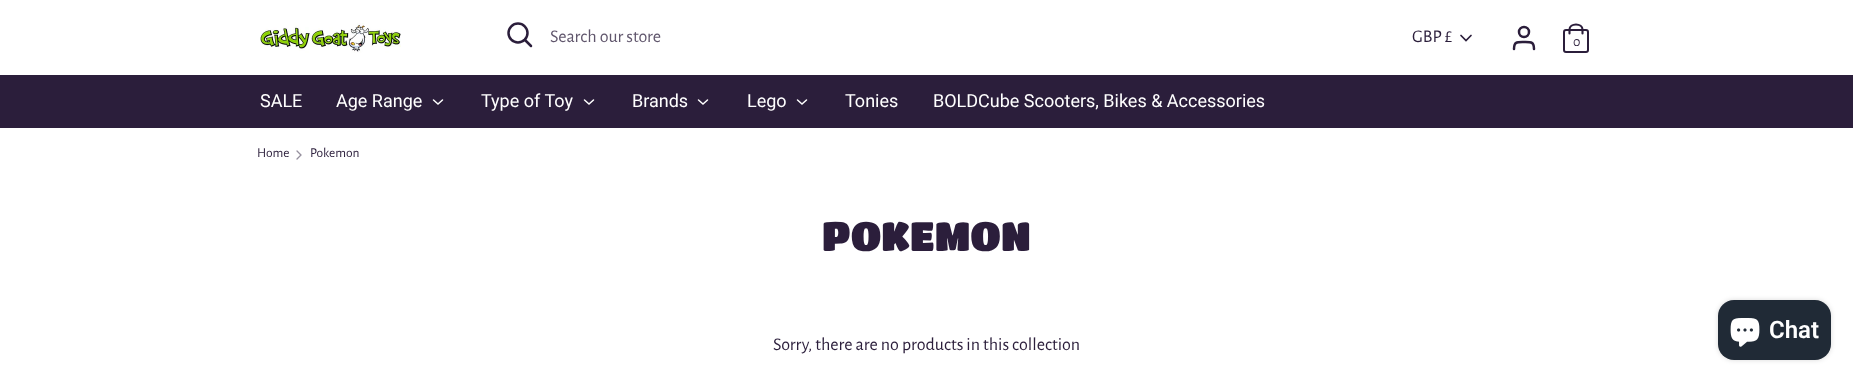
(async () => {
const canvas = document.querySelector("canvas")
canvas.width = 1853
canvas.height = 381
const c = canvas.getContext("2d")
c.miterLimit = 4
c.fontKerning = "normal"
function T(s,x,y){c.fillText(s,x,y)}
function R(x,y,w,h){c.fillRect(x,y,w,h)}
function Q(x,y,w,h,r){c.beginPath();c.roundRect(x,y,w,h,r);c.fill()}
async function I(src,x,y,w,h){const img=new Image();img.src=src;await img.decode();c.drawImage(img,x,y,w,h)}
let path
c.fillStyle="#fff"
R(0,0,1853,381)
await I("1.png",260,23,141,30)
c.beginPath()
c.arc(518,33,9.5,0,7)
c.strokeStyle="#2b1e3b"
c.lineWidth=2.5
c.stroke()
path = new Path2D("M531 46l-6-6")
c.lineCap="round"
c.stroke(path)
c.font="18px Alegreya Sans"
c.fillStyle="#60566c"
T("Search our store",550,42)
c.fillStyle="#2b1e3b"
T("GBP £",1412,42)
path = new Path2D("M1461 35.5l5 5l5-5")
c.lineWidth=1.7
c.stroke(path)
path = new Path2D("M1534 49c0-7.5-3-7-10-7c-7 0-10-.5-10 7")
c.lineWidth=2.5
c.stroke(path)
c.beginPath()
c.arc(1524,32,5,0,7)
c.stroke()
c.beginPath()
c.roundRect(1564,30,24,22,2)
c.lineWidth=2
c.stroke()
path = new Path2D("M1569.5 33.5v-4c0-3 3-5 6.5-5c3.5 0 6.5 2 6.5 5v4")
c.lineWidth=2.1
c.stroke(path)
c.font="14px Alegreya Sans"
T("0",1573,46)
R(0,75,1853,53)
c.font="18px Roboto"
c.fillStyle="#fff"
T("SALE",260,107)
T("Age Range",336,107)
path = new Path2D("M433.5 100l4.5 4l4.5-4")
c.strokeStyle="#fff"
c.lineWidth=1.5
c.stroke(path)
T("Type of Toy",481,107)
path = new Path2D("M584.5 100l4.5 4l4.5-4")
c.stroke(path)
T("Brands",632,107)
path = new Path2D("M698.5 100l4.5 4l4.5-4")
c.stroke(path)
T("Lego",747,107)
path = new Path2D("M797.5 100l4.5 4l4.5-4")
c.stroke(path)
T("Tonies",845,107)
T("BOLDCube Scooters, Bikes & Accessories",933,107)
c.font="13.5px Alegreya Sans"
c.fillStyle="#2b1e3b"
T("Home",257,157)
path = new Path2D("M297 159l4-4l-4-4")
c.strokeStyle="#958f9d"
c.lineWidth=1.3
c.stroke(path)
T("Pokemon",310,157)
c.font="40.5px Titan One"
T("POKEMON",822,251)
c.font="18px Alegreya Sans"
T("Sorry, there are no products in this collection",773,350)
c.fillStyle="#00000026"
c.filter="blur(2.5px)"
c.beginPath()
c.roundRect(1718,300,113,60,16)
c.fill()
c.filter="none"
c.fillStyle="#202a36"
Q(1718,300,113,60,16)
await I("2.png",1730,318,30,29)
c.font="600 24px Roboto"
c.fillStyle="#fff"
T("Chat",1769,338)
})()
